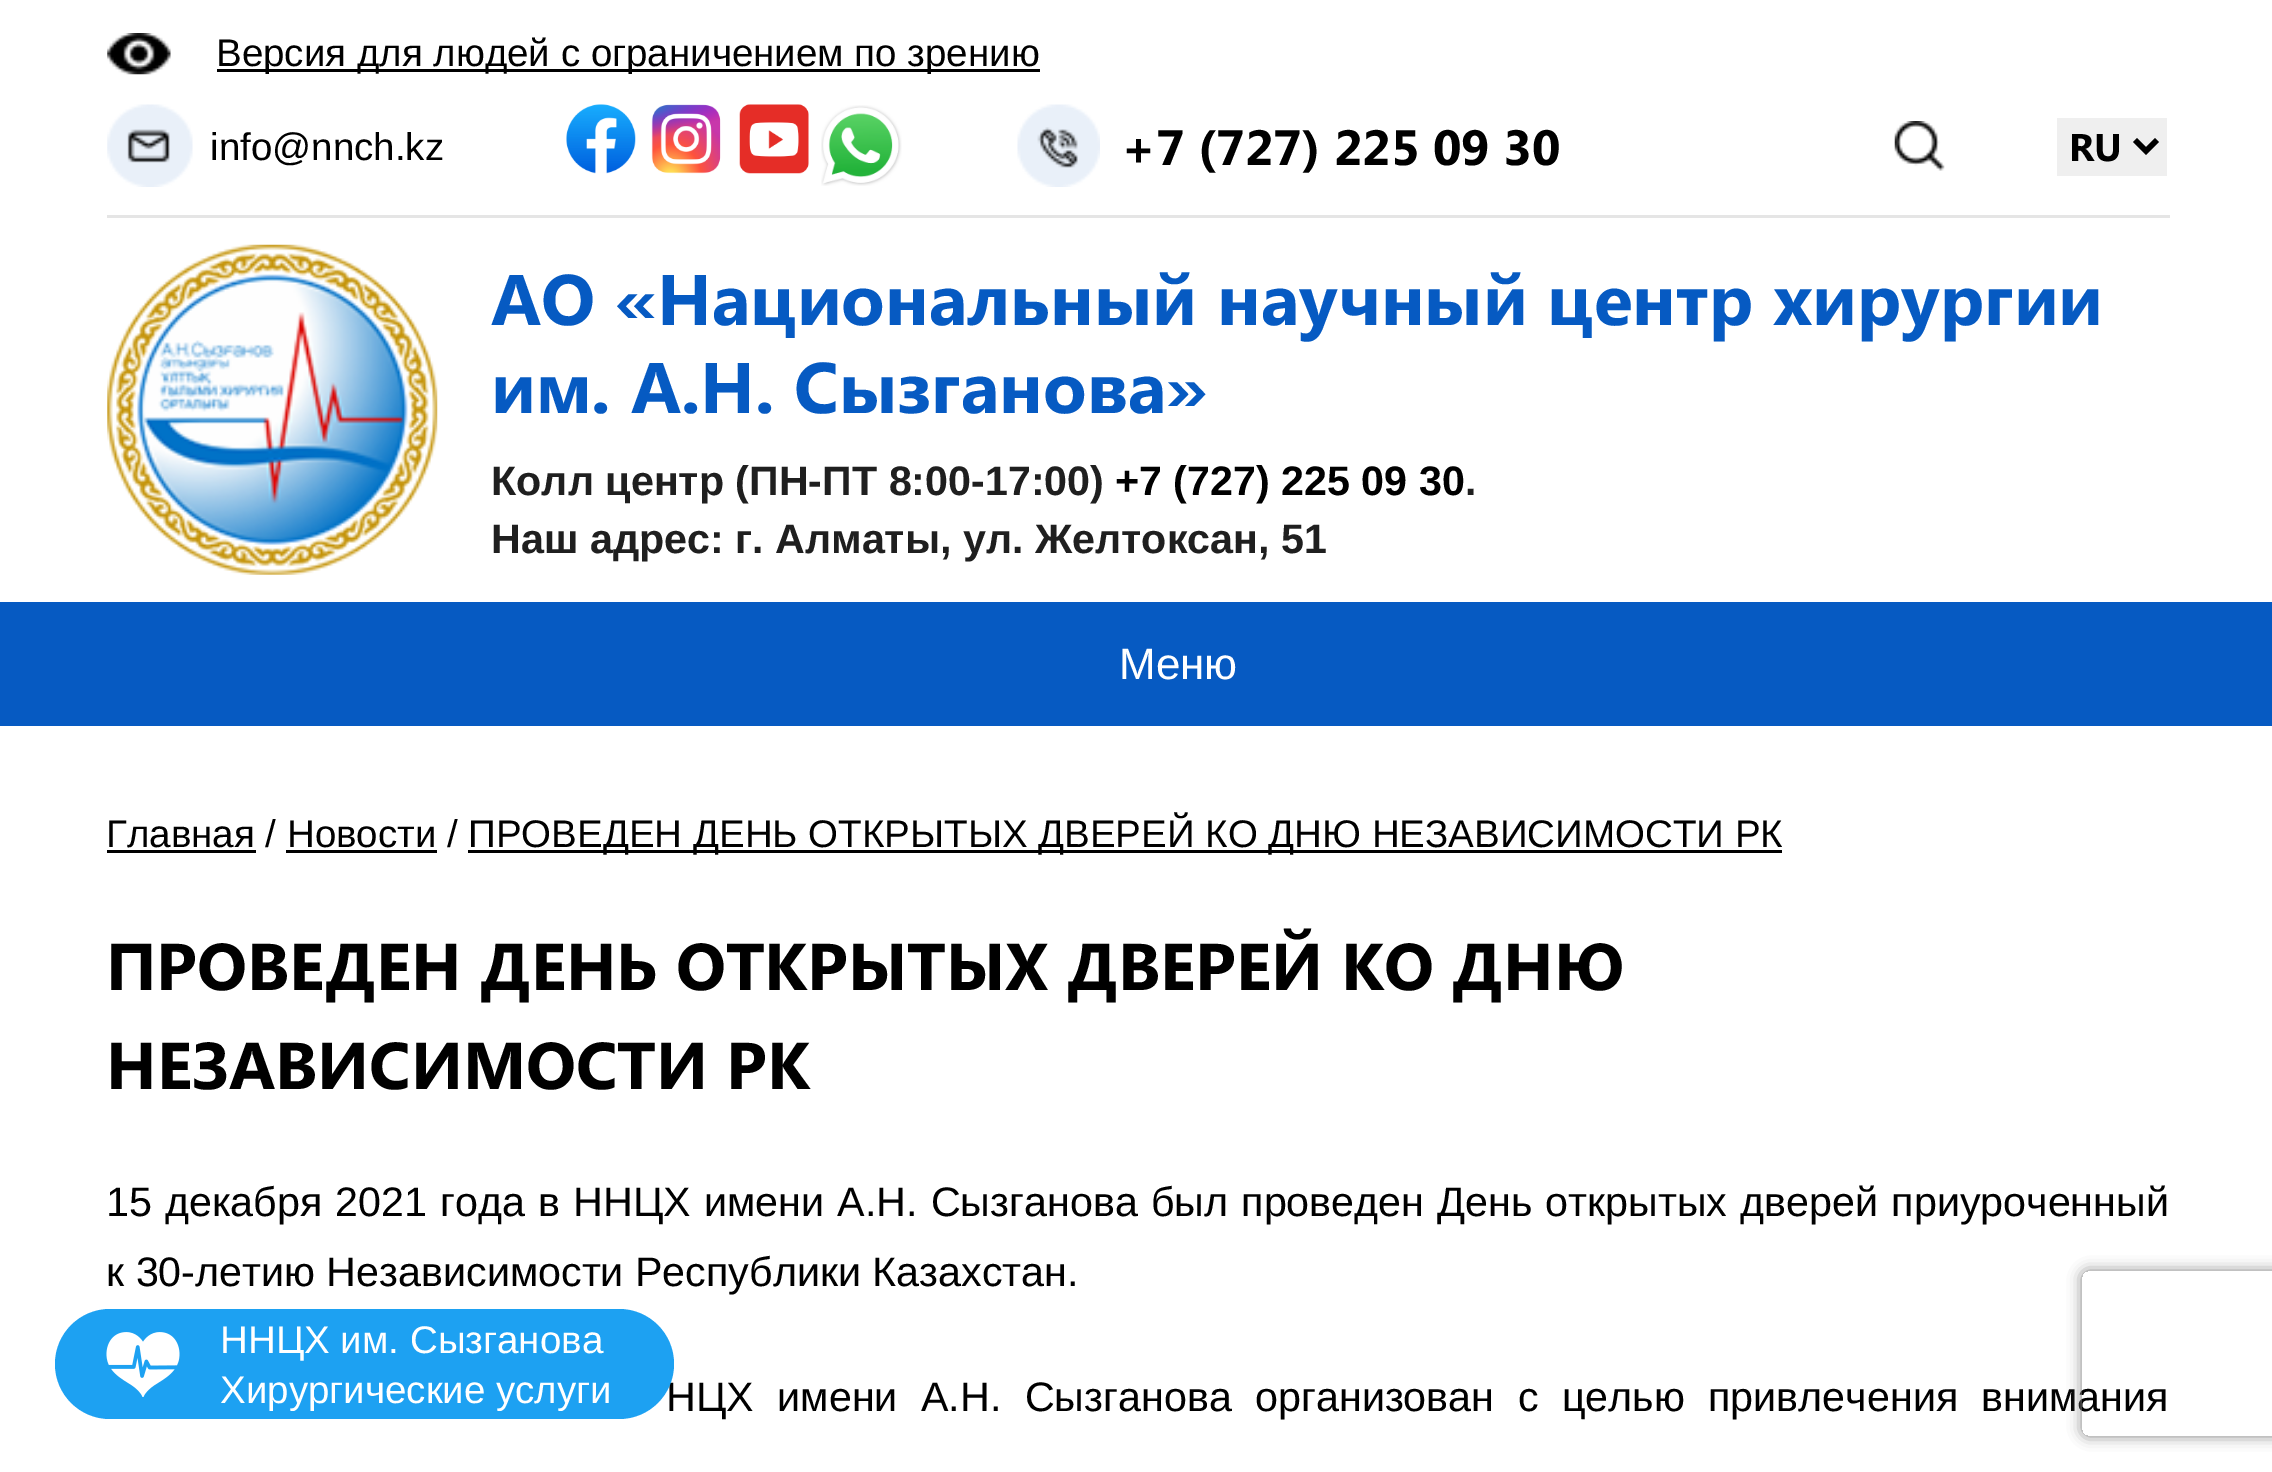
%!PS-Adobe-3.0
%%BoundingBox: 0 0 2272 1472
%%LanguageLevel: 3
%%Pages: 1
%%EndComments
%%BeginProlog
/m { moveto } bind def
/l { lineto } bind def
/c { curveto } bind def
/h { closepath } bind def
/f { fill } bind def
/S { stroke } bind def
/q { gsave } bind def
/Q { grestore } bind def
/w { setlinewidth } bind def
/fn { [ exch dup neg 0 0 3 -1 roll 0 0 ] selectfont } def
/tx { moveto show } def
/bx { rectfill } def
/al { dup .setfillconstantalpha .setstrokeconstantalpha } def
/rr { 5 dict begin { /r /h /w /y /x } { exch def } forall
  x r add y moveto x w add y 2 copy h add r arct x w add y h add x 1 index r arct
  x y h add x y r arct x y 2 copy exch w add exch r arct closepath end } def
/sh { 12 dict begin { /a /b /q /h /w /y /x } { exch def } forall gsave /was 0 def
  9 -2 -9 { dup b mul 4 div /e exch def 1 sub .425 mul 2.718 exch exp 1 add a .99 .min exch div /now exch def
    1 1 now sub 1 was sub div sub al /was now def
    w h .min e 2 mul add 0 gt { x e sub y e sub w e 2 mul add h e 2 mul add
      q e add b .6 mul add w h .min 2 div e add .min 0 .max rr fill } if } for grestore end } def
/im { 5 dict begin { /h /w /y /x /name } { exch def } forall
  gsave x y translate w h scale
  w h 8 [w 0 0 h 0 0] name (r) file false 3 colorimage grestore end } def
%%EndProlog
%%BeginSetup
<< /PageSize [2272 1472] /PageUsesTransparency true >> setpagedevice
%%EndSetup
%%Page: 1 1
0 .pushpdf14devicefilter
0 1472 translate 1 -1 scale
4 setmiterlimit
1 setgray
0 0 2272 1472 bx
0.898 setgray
107 215 2063 3 bx
(image0.raw) 107 33 64 42 im
0 setgray
217 69 823 3 bx
/LiberationSans-Regular 38.5 fn
(Версия для людей с ограничением по зрению) 216 66 tx
(image1.raw) 107 104 86 83 im
(info@nnch.kz) 210 160 tx
(image2.raw) 566 104 70 70 im
(image3.raw) 651 104 70 70 im
(image4.raw) 739 104 70 70 im
(image5.raw) 821 105 81 81 im
(image6.raw) 1017 104 83 83 im
/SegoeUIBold-Bold 49.5 fn
(+7 \(727\) 225 09 30) 1121 165 tx
(image7.raw) 1894 121 51 50 im
0.937 setgray
2057 118 110 58 bx
0 setgray
5.5 w
2135 140 m 2146 151 l 2157 140 l S
/SegoeUIBold-Bold 38.5 fn
(RU) 2069 161 tx
(image8.raw) 107 244 331 331 im
/SegoeUIBold-Bold 71.5 fn
0.024 0.353 0.761 setrgbcolor
(АО «Национальный научный центр хирургии) 491 325 tx
(им. А.Н. Сызганова») 491 413 tx
/LiberationSans-Bold 41.25 fn
0.122 setgray
(Колл центр \(ПН-ПТ 8:00-17:00\)) 491 495 tx
0 setgray
(+7 \(727\) 225 09 30) 1115 495 tx
0.122 setgray
(.) 1465 495 tx
(Наш адрес: г. Алматы, ул. Желтоксан, 51) 491 553 tx
0.024 0.353 0.761 setrgbcolor
0 602 2272 124 bx
/LiberationSans-Regular 44 fn
1 setgray
(Меню) 1119 679 tx
/LiberationSans-Regular 38.5 fn
0 setgray
(Главная / Новости /) 106 847 tx
107 850 149 3 bx
468 850 1314 3 bx
(ПРОВЕДЕН ДЕНЬ ОТКРЫТЫХ ДВЕРЕЙ КО ДНЮ НЕЗАВИСИМОСТИ РК) 468 847 tx
286 850 151 3 bx
/SegoeUIBold-Bold 66 fn
(ПРОВЕДЕН ДЕНЬ ОТКРЫТЫХ ДВЕРЕЙ КО ДНЮ) 106 990 tx
(НЕЗАВИСИМОСТИ РК) 106 1089 tx
/LiberationSans-Regular 41.25 fn
106 1216 m 1.7 0 32 (15 декабря 2021 года в ННЦХ имени А.Н. Сызганова был проведен День открытых дверей приуроченный) widthshow
(к 30-летию Независимости Республики Казахстан.) 106 1286 tx
666 1411 m 12 0 32 (НЦХ имени А.Н. Сызганова организован с целью привлечения внимания) widthshow
0.114 0.631 0.949 setrgbcolor
55 1309 619 110 55 rr f
(image9.raw) 106 1332 74 65 im
/LiberationSans-Regular 38.5 fn
1 setgray
(ННЦХ им. Сызганова) 220 1353 tx
(Хирургические услуги) 220 1403 tx
q
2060 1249 m 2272 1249 l 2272 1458 l 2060 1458 l h 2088 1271 m 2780 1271 l 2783.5 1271 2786 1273.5 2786 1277 c 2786 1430 l 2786 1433.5 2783.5 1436 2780 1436 c 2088 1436 l 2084.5 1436 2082 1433.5 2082 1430 c 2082 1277 l 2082 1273.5 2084.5 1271 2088 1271 c h eoclip newpath
0.502 setgray
2082 1271 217 165 6 7 1 sh
Q
.poppdf14devicefilter showpage
%%EOF
